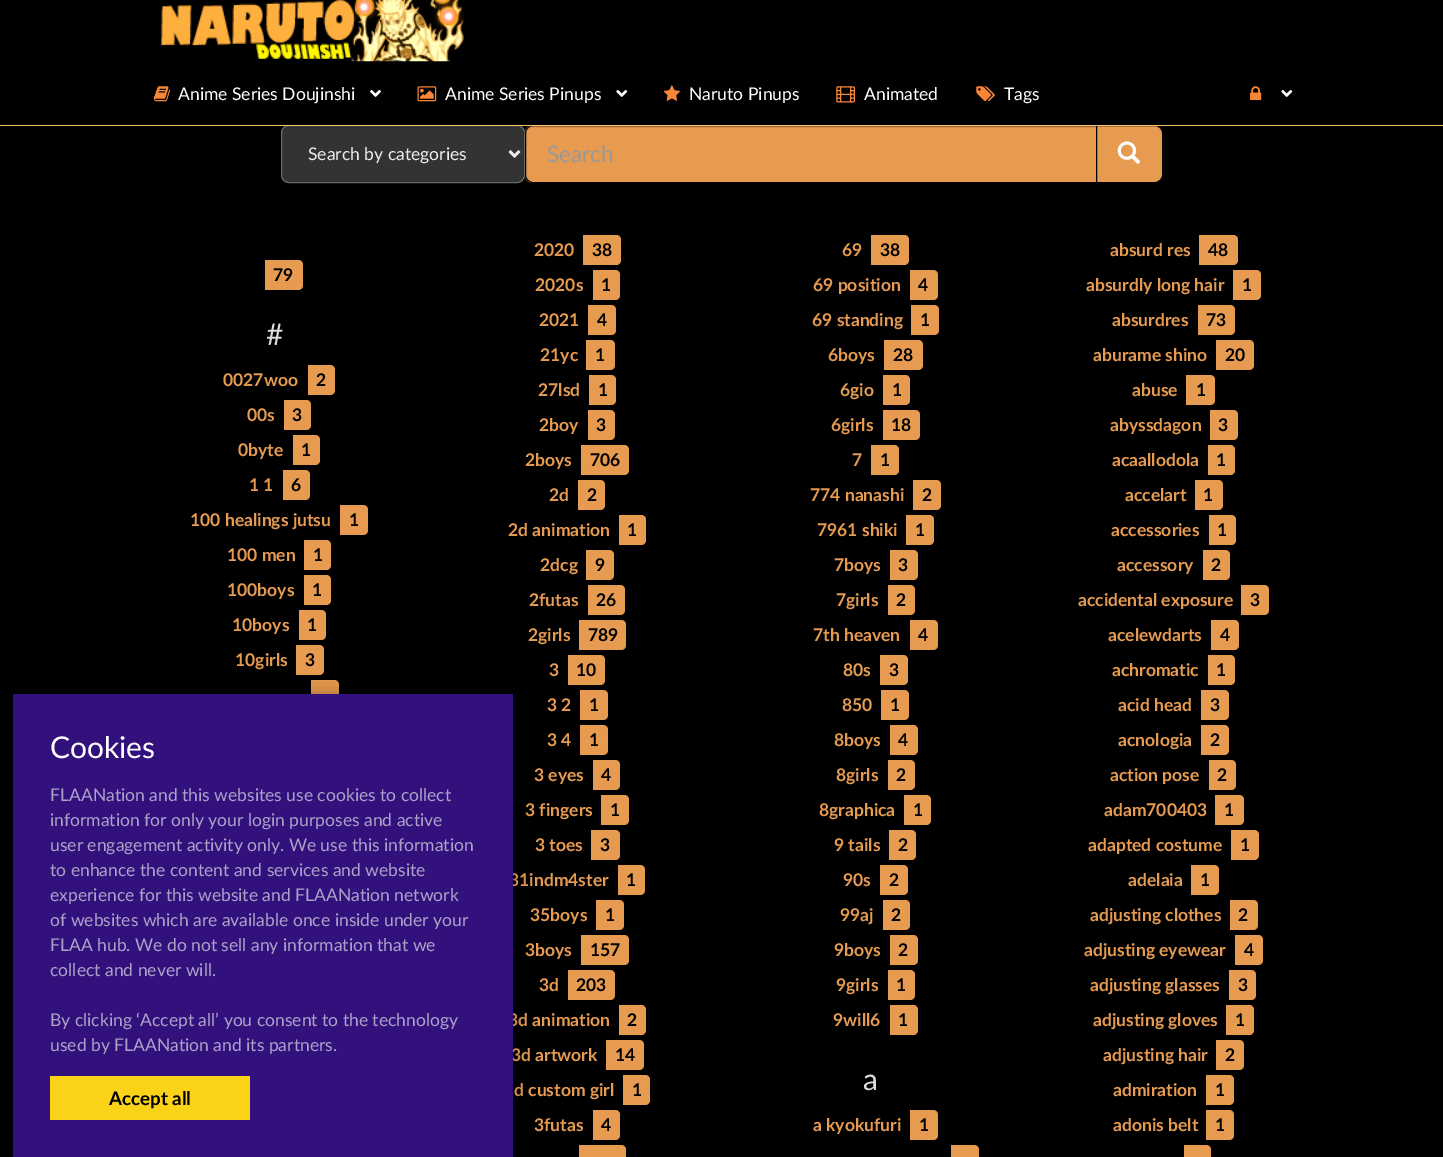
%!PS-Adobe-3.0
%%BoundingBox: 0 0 1443 1157
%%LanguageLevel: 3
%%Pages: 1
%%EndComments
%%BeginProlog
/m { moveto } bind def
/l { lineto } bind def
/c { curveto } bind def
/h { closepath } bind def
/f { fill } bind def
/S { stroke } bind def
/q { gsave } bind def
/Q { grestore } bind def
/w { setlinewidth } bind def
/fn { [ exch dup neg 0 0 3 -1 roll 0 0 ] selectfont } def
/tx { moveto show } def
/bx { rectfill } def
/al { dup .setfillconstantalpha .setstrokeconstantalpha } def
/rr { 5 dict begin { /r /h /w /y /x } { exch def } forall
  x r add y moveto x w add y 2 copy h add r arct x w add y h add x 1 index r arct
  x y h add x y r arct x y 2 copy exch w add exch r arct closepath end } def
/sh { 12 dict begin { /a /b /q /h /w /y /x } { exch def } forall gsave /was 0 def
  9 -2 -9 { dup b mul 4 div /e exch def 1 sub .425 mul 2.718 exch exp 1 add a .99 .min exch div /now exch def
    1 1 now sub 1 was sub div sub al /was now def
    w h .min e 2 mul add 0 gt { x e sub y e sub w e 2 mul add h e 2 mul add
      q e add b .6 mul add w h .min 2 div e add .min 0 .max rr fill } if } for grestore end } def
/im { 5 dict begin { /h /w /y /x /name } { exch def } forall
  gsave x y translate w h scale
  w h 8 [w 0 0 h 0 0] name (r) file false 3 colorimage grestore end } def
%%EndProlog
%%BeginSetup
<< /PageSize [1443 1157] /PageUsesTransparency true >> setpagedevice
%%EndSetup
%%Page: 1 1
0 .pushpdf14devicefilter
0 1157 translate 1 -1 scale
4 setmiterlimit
0 setgray
0 0 1443 1157 bx
0.2 setgray
281 125 244 58 8 rr f
0.184 setgray
289 128 m 518 128 l 521 128 524 130 524 134 c 524 132 l 524 129 521 126 518 126 c 289 126 l 286 126 284 128 283 130 c 285 129 287 128 289 128 c h f
0.4 setgray
281.5 125.5 243 57 7.5 rr S
0.902 0.608 0.314 setrgbcolor
533 125 m 1098 125 l 1098 183 l 533 183 l 528.5 183 525 179.5 525 175 c 525 133 l 525 128.5 528.5 125 533 125 c h f
0.835 0.561 0.29 setrgbcolor
532 128 m 1096 128 l 1096 126 l 532 126 l 527 126 526 130 526 134 c 526 130 529 128 532 128 c h f
0 setgray
533 125.5 m 1097.5 125.5 l 1097.5 182.5 l 533 182.5 l 529 182.5 525.5 179 525.5 175 c 525.5 133 l 525.5 129 529 125.5 533 125.5 c h S
0.902 0.608 0.314 setrgbcolor
1096.5 125.5 m 1155 125.5 l 1159 125.5 1162.5 129 1162.5 133 c 1162.5 175 l 1162.5 179 1159 182.5 1155 182.5 c 1096.5 182.5 l h q f Q
0 setgray
S
0.957 0.741 0.416 setrgbcolor
0 125 1443 1 bx
(image0.raw) 161 0 303 62 im
(image1.raw) 153 86 17 16 im
/Lato-Regular 17.5 fn
1 setgray
(Anime Series Doujinshi) 178 100 tx
(image2.raw) 370 90 11 7 im
(image3.raw) 417 86 20 16 im
(Anime Series Pinups) 445 100 tx
(image4.raw) 616 90 12 7 im
(image5.raw) 663 85 17 16 im
(Naruto Pinups) 689 100 tx
(image6.raw) 836 86 19 17 im
(Animated) 864 100 tx
(image7.raw) 976 86 19 15 im
(Tags) 1004 100 tx
(image8.raw) 1250 86 12 14 im
(image4.raw) 1281 90 12 7 im
0.933 setgray
2.5 w
509.5 151 m 514.5 156 l 519.5 151 l S
(Search by categories) 308 160 tx
/Lato-Regular 22.5 fn
0.6 setgray
(Search) 547 162 tx
(image9.raw) 1117 141 24 23 im
/Lato-Bold 17.5 fn
0.902 0.608 0.314 setrgbcolor
(2020) 534 256 tx
583 235 m 616 235 l 619 235 621 237 621 240 c 621 260 l 621 263 619 265 616 265 c 583 265 l h f
0 setgray
(38) 592 256 tx
0.902 0.608 0.314 setrgbcolor
(69) 842 256 tx
871 235 m 904 235 l 907 235 909 237 909 240 c 909 260 l 909 263 907 265 904 265 c 871 265 l h f
0 setgray
(38) 880 256 tx
0.902 0.608 0.314 setrgbcolor
(2020s) 535 291 tx
593 270 m 615 270 l 618 270 620 272 620 275 c 620 295 l 620 298 618 300 615 300 c 593 300 l h f
0 setgray
(1) 601 291 tx
0.902 0.608 0.314 setrgbcolor
(69 position) 813 291 tx
910 270 m 933 270 l 936 270 938 272 938 275 c 938 295 l 938 298 936 300 933 300 c 910 300 l h f
0 setgray
(4) 918 291 tx
/Lato-Regular 30 fn
0.867 setgray
(#) 266 345 tx
/Lato-Bold 17.5 fn
0.902 0.608 0.314 setrgbcolor
(2021) 539 326 tx
588 305 m 611 305 l 614 305 616 307 616 310 c 616 330 l 616 333 614 335 611 335 c 588 335 l h f
0 setgray
(4) 597 326 tx
0.902 0.608 0.314 setrgbcolor
(69 standing) 812 326 tx
911 305 m 934 305 l 937 305 939 307 939 310 c 939 330 l 939 333 937 335 934 335 c 911 335 l h f
0 setgray
(1) 920 326 tx
0.902 0.608 0.314 setrgbcolor
(21yc) 540 361 tx
586 340 m 610 340 l 613 340 615 342 615 345 c 615 365 l 615 368 613 370 610 370 c 586 370 l h f
0 setgray
(1) 595 361 tx
0.902 0.608 0.314 setrgbcolor
(6boys) 828 361 tx
884 340 m 918 340 l 921 340 923 342 923 345 c 923 365 l 923 368 921 370 918 370 c 884 370 l h f
0 setgray
(28) 893 361 tx
0.902 0.608 0.314 setrgbcolor
(0027woo) 223 386 tx
308 365 m 330 365 l 333 365 335 367 335 370 c 335 390 l 335 393 333 395 330 395 c 308 395 l h f
0 setgray
(2) 316 386 tx
0.902 0.608 0.314 setrgbcolor
(27lsd) 538 396 tx
589 375 m 611 375 l 614 375 616 377 616 380 c 616 400 l 616 403 614 405 611 405 c 589 405 l h f
0 setgray
(1) 598 396 tx
0.902 0.608 0.314 setrgbcolor
(6gio) 840 396 tx
883 375 m 905 375 l 908 375 910 377 910 380 c 910 400 l 910 403 908 405 905 405 c 883 405 l h f
0 setgray
(1) 892 396 tx
0.902 0.608 0.314 setrgbcolor
(00s) 247 421 tx
284 400 m 306 400 l 309 400 311 402 311 405 c 311 425 l 311 428 309 430 306 430 c 284 430 l h f
0 setgray
(3) 292 421 tx
0.902 0.608 0.314 setrgbcolor
(2boy) 539 431 tx
588 410 m 610 410 l 613 410 615 412 615 415 c 615 435 l 615 438 613 440 610 440 c 588 440 l h f
0 setgray
(3) 596 431 tx
0.902 0.608 0.314 setrgbcolor
(6girls) 831 431 tx
883 410 m 915 410 l 918 410 920 412 920 415 c 920 435 l 920 438 918 440 915 440 c 883 440 l h f
0 setgray
(18) 891 431 tx
0.902 0.608 0.314 setrgbcolor
(0byte) 238 456 tx
293 435 m 315 435 l 318 435 320 437 320 440 c 320 460 l 320 463 318 465 315 465 c 293 465 l h f
0 setgray
(1) 301 456 tx
0.902 0.608 0.314 setrgbcolor
(2boys) 525 466 tx
581 445 m 624 445 l 627 445 629 447 629 450 c 629 470 l 629 473 627 475 624 475 c 581 475 l h f
0 setgray
(706) 590 466 tx
0.902 0.608 0.314 setrgbcolor
(7) 852 466 tx
871 445 m 894 445 l 897 445 899 447 899 450 c 899 470 l 899 473 897 475 894 475 c 871 475 l h f
0 setgray
(1) 880 466 tx
0.902 0.608 0.314 setrgbcolor
(1 1) 249 491 tx
283 470 m 305 470 l 308 470 310 472 310 475 c 310 495 l 310 498 308 500 305 500 c 283 500 l h f
0 setgray
(6) 291 491 tx
0.902 0.608 0.314 setrgbcolor
(2d) 549 501 tx
578 480 m 600 480 l 603 480 605 482 605 485 c 605 505 l 605 508 603 510 600 510 c 578 510 l h f
0 setgray
(2) 587 501 tx
0.902 0.608 0.314 setrgbcolor
(774 nanashi) 810 501 tx
913 480 m 936 480 l 939 480 941 482 941 485 c 941 505 l 941 508 939 510 936 510 c 913 510 l h f
0 setgray
(2) 922 501 tx
0.902 0.608 0.314 setrgbcolor
(100 healings jutsu) 190 526 tx
340 505 m 363 505 l 366 505 368 507 368 510 c 368 530 l 368 533 366 535 363 535 c 340 535 l h f
0 setgray
(1) 349 526 tx
0.902 0.608 0.314 setrgbcolor
(2d animation) 508 536 tx
619 515 m 641 515 l 644 515 646 517 646 520 c 646 540 l 646 543 644 545 641 545 c 619 545 l h f
0 setgray
(1) 627 536 tx
0.902 0.608 0.314 setrgbcolor
(7961 shiki) 817 536 tx
906 515 m 929 515 l 932 515 934 517 934 520 c 934 540 l 934 543 932 545 929 545 c 906 545 l h f
0 setgray
(1) 915 536 tx
0.902 0.608 0.314 setrgbcolor
(100 men) 227 561 tx
304 540 m 326 540 l 329 540 331 542 331 545 c 331 565 l 331 568 329 570 326 570 c 304 570 l h f
0 setgray
(1) 313 561 tx
0.902 0.608 0.314 setrgbcolor
(2dcg) 540 571 tx
586 550 m 609 550 l 612 550 614 552 614 555 c 614 575 l 614 578 612 580 609 580 c 586 580 l h f
0 setgray
(9) 595 571 tx
0.902 0.608 0.314 setrgbcolor
(7boys) 834 571 tx
890 550 m 913 550 l 916 550 918 552 918 555 c 918 575 l 918 578 916 580 913 580 c 890 580 l h f
0 setgray
(3) 898 571 tx
0.902 0.608 0.314 setrgbcolor
(100boys) 227 596 tx
304 575 m 326 575 l 329 575 331 577 331 580 c 331 600 l 331 603 329 605 326 605 c 304 605 l h f
0 setgray
(1) 312 596 tx
0.902 0.608 0.314 setrgbcolor
(2futas) 529 606 tx
588 585 m 620 585 l 623 585 625 587 625 590 c 625 610 l 625 613 623 615 620 615 c 588 615 l h f
0 setgray
(26) 596 606 tx
0.902 0.608 0.314 setrgbcolor
(7girls) 836 606 tx
888 585 m 910 585 l 913 585 915 587 915 590 c 915 610 l 915 613 913 615 910 615 c 888 615 l h f
0 setgray
(2) 896 606 tx
0.902 0.608 0.314 setrgbcolor
(10boys) 232 631 tx
299 610 m 321 610 l 324 610 326 612 326 615 c 326 635 l 326 638 324 640 321 640 c 299 640 l h f
0 setgray
(1) 307 631 tx
0.902 0.608 0.314 setrgbcolor
(2girls) 528 641 tx
579 620 m 621 620 l 624 620 626 622 626 625 c 626 645 l 626 648 624 650 621 650 c 579 650 l h f
0 setgray
(789) 588 641 tx
0.902 0.608 0.314 setrgbcolor
(7th heaven) 813 641 tx
910 620 m 933 620 l 936 620 938 622 938 625 c 938 645 l 938 648 936 650 933 650 c 910 650 l h f
0 setgray
(4) 918 641 tx
0.902 0.608 0.314 setrgbcolor
(10girls) 235 666 tx
296 645 m 319 645 l 322 645 324 647 324 650 c 324 670 l 324 673 322 675 319 675 c 296 675 l h f
0 setgray
(3) 305 666 tx
0.902 0.608 0.314 setrgbcolor
(3) 549 676 tx
568 655 m 600 655 l 603 655 605 657 605 660 c 605 680 l 605 683 603 685 600 685 c 568 685 l h f
0 setgray
(10) 576 676 tx
0.902 0.608 0.314 setrgbcolor
(80s) 843 676 tx
880 655 m 903 655 l 906 655 908 657 908 660 c 908 680 l 908 683 906 685 903 685 c 880 685 l h f
0 setgray
(3) 889 676 tx
0.902 0.608 0.314 setrgbcolor
311 680 m 334 680 l 337 680 339 682 339 685 c 339 705 l 339 708 337 710 334 710 c 311 710 l h f
(3 2) 547 711 tx
580 690 m 603 690 l 606 690 608 692 608 695 c 608 715 l 608 718 606 720 603 720 c 580 720 l h f
0 setgray
(1) 589 711 tx
0.902 0.608 0.314 setrgbcolor
(850) 842 711 tx
881 690 m 904 690 l 907 690 909 692 909 695 c 909 715 l 909 718 907 720 904 720 c 881 720 l h f
0 setgray
(1) 890 711 tx
0.902 0.608 0.314 setrgbcolor
(3 4) 547 746 tx
580 725 m 603 725 l 606 725 608 727 608 730 c 608 750 l 608 753 606 755 603 755 c 580 755 l h f
0 setgray
(1) 589 746 tx
0.902 0.608 0.314 setrgbcolor
(8boys) 834 746 tx
890 725 m 913 725 l 916 725 918 727 918 730 c 918 750 l 918 753 916 755 913 755 c 890 755 l h f
0 setgray
(4) 898 746 tx
0.902 0.608 0.314 setrgbcolor
(3 eyes) 534 781 tx
593 760 m 615 760 l 618 760 620 762 620 765 c 620 785 l 620 788 618 790 615 790 c 593 790 l h f
0 setgray
(4) 601 781 tx
0.902 0.608 0.314 setrgbcolor
(8girls) 836 781 tx
888 760 m 910 760 l 913 760 915 762 915 765 c 915 785 l 915 788 913 790 910 790 c 888 790 l h f
0 setgray
(2) 896 781 tx
0.902 0.608 0.314 setrgbcolor
(3 fingers) 525 816 tx
601 795 m 624 795 l 627 795 629 797 629 800 c 629 820 l 629 823 627 825 624 825 c 601 825 l h f
0 setgray
(1) 610 816 tx
0.902 0.608 0.314 setrgbcolor
(8graphica) 819 816 tx
904 795 m 926 795 l 929 795 931 797 931 800 c 931 820 l 931 823 929 825 926 825 c 904 825 l h f
0 setgray
(1) 913 816 tx
0.902 0.608 0.314 setrgbcolor
(3 toes) 535 851 tx
591 830 m 615 830 l 618 830 620 832 620 835 c 620 855 l 620 858 618 860 615 860 c 591 860 l h f
0 setgray
(3) 600 851 tx
0.902 0.608 0.314 setrgbcolor
(9 tails) 834 851 tx
889 830 m 911 830 l 914 830 916 832 916 835 c 916 855 l 916 858 914 860 911 860 c 889 860 l h f
0 setgray
(2) 898 851 tx
0.902 0.608 0.314 setrgbcolor
(31indm4ster) 509 886 tx
618 865 m 640 865 l 643 865 645 867 645 870 c 645 890 l 645 893 643 895 640 895 c 618 895 l h f
0 setgray
(1) 626 886 tx
0.902 0.608 0.314 setrgbcolor
(90s) 843 886 tx
880 865 m 903 865 l 906 865 908 867 908 870 c 908 890 l 908 893 906 895 903 895 c 880 895 l h f
0 setgray
(2) 889 886 tx
0.902 0.608 0.314 setrgbcolor
(35boys) 530 921 tx
596 900 m 619 900 l 622 900 624 902 624 905 c 624 925 l 624 928 622 930 619 930 c 596 930 l h f
0 setgray
(1) 605 921 tx
0.902 0.608 0.314 setrgbcolor
(99aj) 840 921 tx
883 900 m 905 900 l 908 900 910 902 910 905 c 910 925 l 910 928 908 930 905 930 c 883 930 l h f
0 setgray
(2) 891 921 tx
0.902 0.608 0.314 setrgbcolor
(3boys) 525 956 tx
581 935 m 624 935 l 627 935 629 937 629 940 c 629 960 l 629 963 627 965 624 965 c 581 965 l h f
0 setgray
(157) 590 956 tx
0.902 0.608 0.314 setrgbcolor
(9boys) 834 956 tx
890 935 m 913 935 l 916 935 918 937 918 940 c 918 960 l 918 963 916 965 913 965 c 890 965 l h f
0 setgray
(2) 898 956 tx
0.902 0.608 0.314 setrgbcolor
(3d) 539 991 tx
568 970 m 610 970 l 613 970 615 972 615 975 c 615 995 l 615 998 613 1000 610 1000 c 568 1000 l h f
0 setgray
(203) 576 991 tx
0.902 0.608 0.314 setrgbcolor
(9girls) 836 991 tx
888 970 m 910 970 l 913 970 915 972 915 975 c 915 995 l 915 998 913 1000 910 1000 c 888 1000 l h f
0 setgray
(1) 896 991 tx
0.902 0.608 0.314 setrgbcolor
(3d animation) 508 1026 tx
619 1005 m 641 1005 l 644 1005 646 1007 646 1010 c 646 1030 l 646 1033 644 1035 641 1035 c 619 1035 l h f
0 setgray
(2) 627 1026 tx
0.902 0.608 0.314 setrgbcolor
(9will6) 833 1026 tx
890 1005 m 913 1005 l 916 1005 918 1007 918 1010 c 918 1030 l 918 1033 916 1035 913 1035 c 890 1035 l h f
0 setgray
(1) 898 1026 tx
0.902 0.608 0.314 setrgbcolor
(3d artwork) 511 1061 tx
606 1040 m 639 1040 l 642 1040 644 1042 644 1045 c 644 1065 l 644 1068 642 1070 639 1070 c 606 1070 l h f
0 setgray
(14) 615 1061 tx
0.902 0.608 0.314 setrgbcolor
(d custom girl) 514 1096 tx
623 1075 m 645 1075 l 648 1075 650 1077 650 1080 c 650 1100 l 650 1103 648 1105 645 1105 c 623 1105 l h f
0 setgray
(1) 632 1096 tx
0.902 0.608 0.314 setrgbcolor
(3futas) 534 1131 tx
593 1110 m 615 1110 l 618 1110 620 1112 620 1115 c 620 1135 l 620 1138 618 1140 615 1140 c 593 1140 l h f
0 setgray
(4) 601 1131 tx
0.902 0.608 0.314 setrgbcolor
579 1145 m 621 1145 l 624 1145 626 1147 626 1150 c 626 1157 l 626 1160 624 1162 621 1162 c 579 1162 l h f
(absurd res) 1110 256 tx
1199 235 m 1233 235 l 1236 235 1238 237 1238 240 c 1238 260 l 1238 263 1236 265 1233 265 c 1199 265 l h f
0 setgray
(48) 1208 256 tx
0.902 0.608 0.314 setrgbcolor
(absurdly long hair) 1086 291 tx
1233 270 m 1256 270 l 1259 270 1261 272 1261 275 c 1261 295 l 1261 298 1259 300 1256 300 c 1233 300 l h f
0 setgray
(1) 1242 291 tx
0.902 0.608 0.314 setrgbcolor
(absurdres) 1112 326 tx
1198 305 m 1230 305 l 1233 305 1235 307 1235 310 c 1235 330 l 1235 333 1233 335 1230 335 c 1198 335 l h f
0 setgray
(73) 1206 326 tx
0.902 0.608 0.314 setrgbcolor
(aburame shino) 1093 361 tx
1216 340 m 1249 340 l 1252 340 1254 342 1254 345 c 1254 365 l 1254 368 1252 370 1249 370 c 1216 370 l h f
0 setgray
(20) 1225 361 tx
0.902 0.608 0.314 setrgbcolor
(abuse) 1132 396 tx
1186 375 m 1210 375 l 1213 375 1215 377 1215 380 c 1215 400 l 1215 403 1213 405 1210 405 c 1186 405 l h f
0 setgray
(1) 1196 396 tx
0.902 0.608 0.314 setrgbcolor
(abyssdagon) 1110 431 tx
1210 410 m 1233 410 l 1236 410 1238 412 1238 415 c 1238 435 l 1238 438 1236 440 1233 440 c 1210 440 l h f
0 setgray
(3) 1218 431 tx
0.902 0.608 0.314 setrgbcolor
(acaallodola) 1112 466 tx
1208 445 m 1230 445 l 1233 445 1235 447 1235 450 c 1235 470 l 1235 473 1233 475 1230 475 c 1208 475 l h f
0 setgray
(1) 1216 466 tx
0.902 0.608 0.314 setrgbcolor
(accelart) 1125 501 tx
1195 480 m 1218 480 l 1221 480 1223 482 1223 485 c 1223 505 l 1223 508 1221 510 1218 510 c 1195 510 l h f
0 setgray
(1) 1203 501 tx
0.902 0.608 0.314 setrgbcolor
(accessories) 1111 536 tx
1209 515 m 1231 515 l 1234 515 1236 517 1236 520 c 1236 540 l 1236 543 1234 545 1231 545 c 1209 545 l h f
0 setgray
(1) 1217 536 tx
0.902 0.608 0.314 setrgbcolor
(accessory) 1117 571 tx
1203 550 m 1225 550 l 1228 550 1230 552 1230 555 c 1230 575 l 1230 578 1228 580 1225 580 c 1203 580 l h f
0 setgray
(2) 1211 571 tx
0.902 0.608 0.314 setrgbcolor
(accidental exposure) 1078 606 tx
1241 585 m 1264 585 l 1267 585 1269 587 1269 590 c 1269 610 l 1269 613 1267 615 1264 615 c 1241 615 l h f
0 setgray
(3) 1250 606 tx
0.902 0.608 0.314 setrgbcolor
(acelewdarts) 1108 641 tx
1211 620 m 1234 620 l 1237 620 1239 622 1239 625 c 1239 645 l 1239 648 1237 650 1234 650 c 1211 650 l h f
0 setgray
(4) 1220 641 tx
0.902 0.608 0.314 setrgbcolor
(achromatic) 1112 676 tx
1208 655 m 1230 655 l 1233 655 1235 657 1235 660 c 1235 680 l 1235 683 1233 685 1230 685 c 1208 685 l h f
0 setgray
(1) 1216 676 tx
0.902 0.608 0.314 setrgbcolor
(acid head) 1118 711 tx
1201 690 m 1224 690 l 1227 690 1229 692 1229 695 c 1229 715 l 1229 718 1227 720 1224 720 c 1201 720 l h f
0 setgray
(3) 1210 711 tx
0.902 0.608 0.314 setrgbcolor
(acnologia) 1118 746 tx
1201 725 m 1224 725 l 1227 725 1229 727 1229 730 c 1229 750 l 1229 753 1227 755 1224 755 c 1201 755 l h f
0 setgray
(2) 1210 746 tx
0.902 0.608 0.314 setrgbcolor
(action pose) 1110 781 tx
1209 760 m 1231 760 l 1234 760 1236 762 1236 765 c 1236 785 l 1236 788 1234 790 1231 790 c 1209 790 l h f
0 setgray
(2) 1217 781 tx
0.902 0.608 0.314 setrgbcolor
(adam700403) 1104 816 tx
1215 795 m 1239 795 l 1242 795 1244 797 1244 800 c 1244 820 l 1244 823 1242 825 1239 825 c 1215 825 l h f
0 setgray
(1) 1224 816 tx
0.902 0.608 0.314 setrgbcolor
(adapted costume) 1088 851 tx
1231 830 m 1254 830 l 1257 830 1259 832 1259 835 c 1259 855 l 1259 858 1257 860 1254 860 c 1231 860 l h f
0 setgray
(1) 1240 851 tx
0.902 0.608 0.314 setrgbcolor
(adelaia) 1128 886 tx
1191 865 m 1214 865 l 1217 865 1219 867 1219 870 c 1219 890 l 1219 893 1217 895 1214 895 c 1191 895 l h f
0 setgray
(1) 1200 886 tx
0.902 0.608 0.314 setrgbcolor
(adjusting clothes) 1090 921 tx
1230 900 m 1253 900 l 1256 900 1258 902 1258 905 c 1258 925 l 1258 928 1256 930 1253 930 c 1230 930 l h f
0 setgray
(2) 1238 921 tx
0.902 0.608 0.314 setrgbcolor
(adjusting eyewear) 1084 956 tx
1235 935 m 1258 935 l 1261 935 1263 937 1263 940 c 1263 960 l 1263 963 1261 965 1258 965 c 1235 965 l h f
0 setgray
(4) 1244 956 tx
0.902 0.608 0.314 setrgbcolor
(adjusting glasses) 1090 991 tx
1229 970 m 1251 970 l 1254 970 1256 972 1256 975 c 1256 995 l 1256 998 1254 1000 1251 1000 c 1229 1000 l h f
0 setgray
(3) 1238 991 tx
0.902 0.608 0.314 setrgbcolor
(adjusting gloves) 1093 1026 tx
1226 1005 m 1249 1005 l 1252 1005 1254 1007 1254 1010 c 1254 1030 l 1254 1033 1252 1035 1249 1035 c 1226 1035 l h f
0 setgray
(1) 1235 1026 tx
0.902 0.608 0.314 setrgbcolor
(adjusting hair) 1103 1061 tx
1216 1040 m 1239 1040 l 1242 1040 1244 1042 1244 1045 c 1244 1065 l 1244 1068 1242 1070 1239 1070 c 1216 1070 l h f
0 setgray
(2) 1225 1061 tx
/Lato-Regular 30 fn
0.867 setgray
(a) 863 1090 tx
/Lato-Bold 17.5 fn
0.902 0.608 0.314 setrgbcolor
(admiration) 1113 1096 tx
1206 1075 m 1229 1075 l 1232 1075 1234 1077 1234 1080 c 1234 1100 l 1234 1103 1232 1105 1229 1105 c 1206 1105 l h f
0 setgray
(1) 1215 1096 tx
0.902 0.608 0.314 setrgbcolor
(a kyokufuri) 813 1131 tx
910 1110 m 933 1110 l 936 1110 938 1112 938 1115 c 938 1135 l 938 1138 936 1140 933 1140 c 910 1140 l h f
0 setgray
(1) 919 1131 tx
0.902 0.608 0.314 setrgbcolor
(adonis belt) 1113 1131 tx
1206 1110 m 1229 1110 l 1232 1110 1234 1112 1234 1115 c 1234 1135 l 1234 1138 1232 1140 1229 1140 c 1206 1140 l h f
0 setgray
(1) 1215 1131 tx
0.902 0.608 0.314 setrgbcolor
951 1145 m 974 1145 l 977 1145 979 1147 979 1150 c 979 1157 l 979 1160 977 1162 974 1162 c 951 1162 l h f
1184 1145 m 1206 1145 l 1209 1145 1211 1147 1211 1150 c 1211 1157 l 1211 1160 1209 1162 1206 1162 c 1184 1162 l h f
265 260 m 298 260 l 301 260 303 262 303 265 c 303 285 l 303 288 301 290 298 290 c 265 290 l h f
0 setgray
(79) 273 281 tx
13 694 500 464 0 9.5 0.3 sh
0.196 0.067 0.49 setrgbcolor
13 694 500 463 bx
/Lato-Regular 30 fn
1 setgray
(Cookies) 50 758 tx
/Lato-Regular 17.5 fn
0.678 0.631 0.784 setrgbcolor
(FLAANation and this websites use cookies to collect) 50 801 tx
(information for only your login purposes and active) 50 826 tx
(user engagement activity only. We use this information) 50 851 tx
(to enhance the content and services and website) 50 876 tx
(experience for this website and FLAANation network) 50 901 tx
(of websites which are available once inside under your) 50 926 tx
(FLAA hub. We do not sell any information that we) 50 951 tx
(collect and never will.) 50 976 tx
(By clicking ‘Accept all’ you consent to the technology) 50 1026 tx
(used by FLAANation and its partners.) 50 1051 tx
0.98 0.827 0.094 setrgbcolor
50 1076 200 44 bx
/Lato-Bold 18.75 fn
0 setgray
(Accept all) 109 1105 tx
.poppdf14devicefilter showpage
%%EOF
